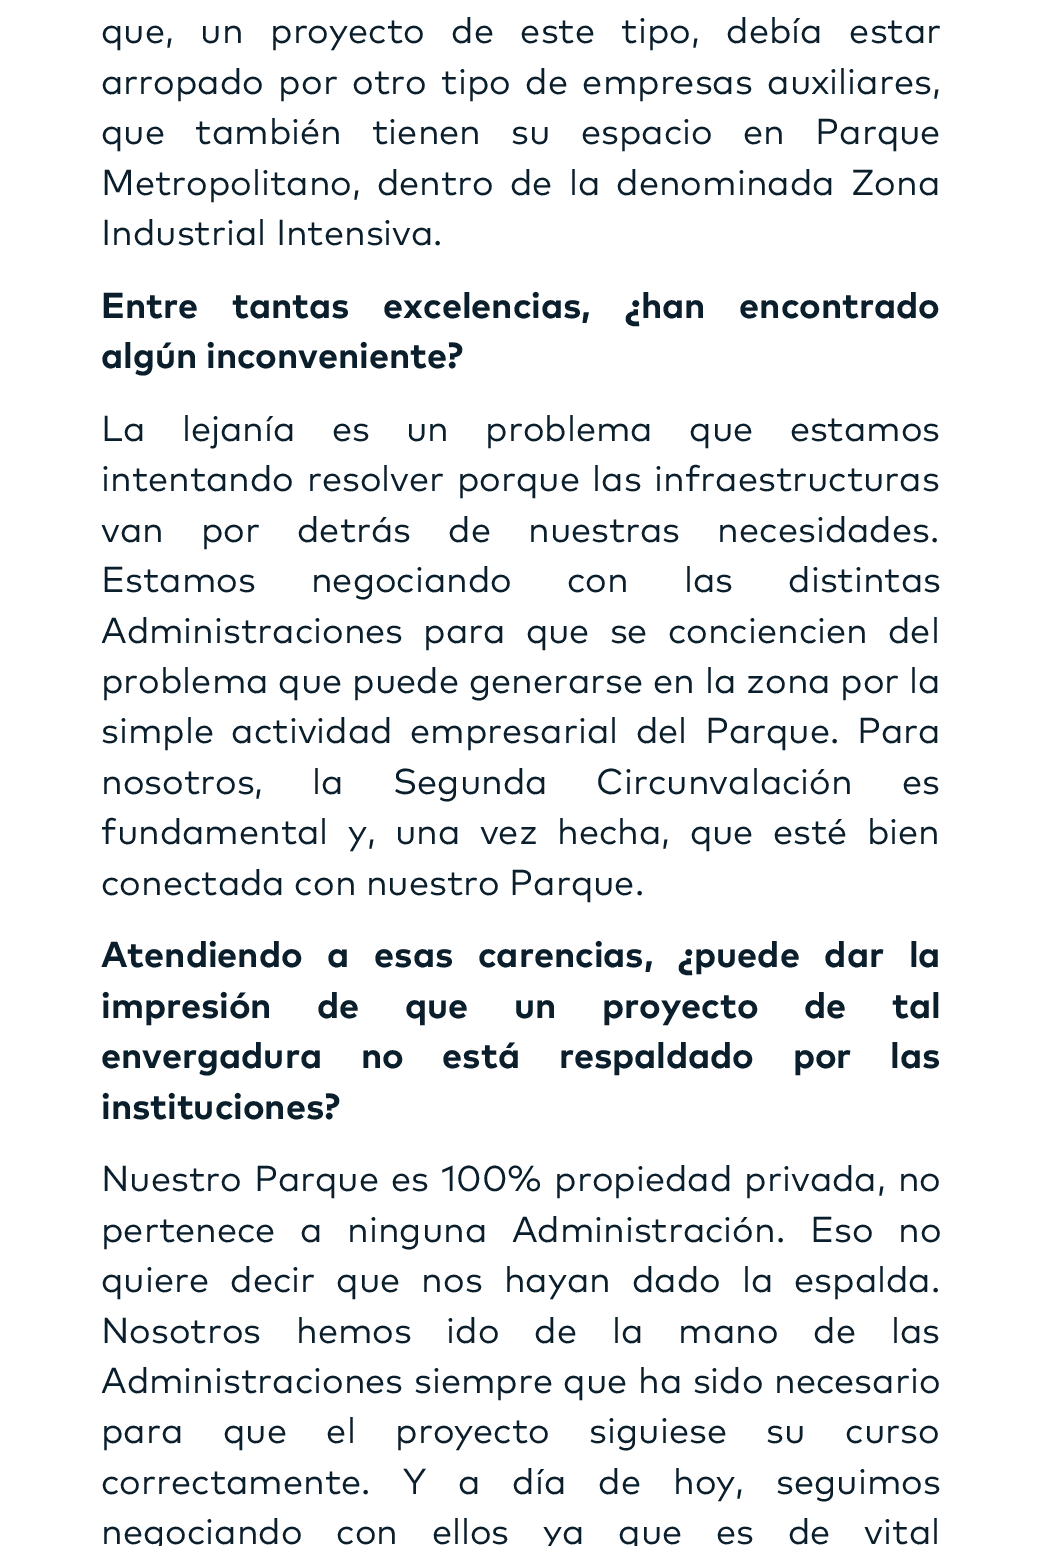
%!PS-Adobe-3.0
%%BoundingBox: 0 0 1040 1546
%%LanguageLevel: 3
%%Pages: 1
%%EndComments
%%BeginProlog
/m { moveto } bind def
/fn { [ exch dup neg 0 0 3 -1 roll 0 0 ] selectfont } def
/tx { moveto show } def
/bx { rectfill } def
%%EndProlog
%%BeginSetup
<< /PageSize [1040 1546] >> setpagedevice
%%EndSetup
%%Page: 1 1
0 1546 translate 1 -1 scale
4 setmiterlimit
1 setgray
0 0 1040 1546 bx
/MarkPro-Regular 36 fn
0.039 0.118 0.173 setrgbcolor
101 43 m 17 0 32 (que, un proyecto de este tipo, debía estar) widthshow
101 94 m 5 0 32 (arropado por otro tipo de empresas auxiliares,) widthshow
101 144 m 20.75 0 32 (que también tienen su espacio en Parque) widthshow
101 195 m 6.5 0 32 (Metropolitano, dentro de la denominada Zona) widthshow
(Industrial Intensiva.) 101 245 tx
/MarkPro-Bold 36 fn
101 318 m 25 0 32 (Entre tantas excelencias, ¿han encontrado) widthshow
(algún inconveniente?) 101 368 tx
/MarkPro-Regular 36 fn
101 441 m 26.75 0 32 (La lejanía es un problema que estamos) widthshow
101 491 m 3 0 32 (intentando resolver porque las infraestructuras) widthshow
101 542 m 27.5 0 32 (van por detrás de nuestras necesidades.) widthshow
101 592 m 45.5 0 32 (Estamos negociando con las distintas) widthshow
101 643 m 10.5 0 32 (Administraciones para que se conciencien del) widthshow
101 693 m 0.25 0 32 (problema que puede generarse en la zona por la) widthshow
101 743 m 8 0 32 (simple actividad empresarial del Parque. Para) widthshow
101 794 m 39.5 0 32 (nosotros, la Segunda Circunvalación es) widthshow
101 844 m 9.75 0 32 (fundamental y, una vez hecha, que esté bien) widthshow
(conectada con nuestro Parque.) 101 895 tx
/MarkPro-Bold 36 fn
101 967 m 16 0 32 (Atendiendo a esas carencias, ¿puede dar la) widthshow
101 1018 m 36.75 0 32 (impresión de que un proyecto de tal) widthshow
101 1068 m 30 0 32 (envergadura no está respaldado por las) widthshow
(instituciones?) 101 1119 tx
/MarkPro-Regular 36 fn
101 1191 m 2.5 0 32 (Nuestro Parque es 100% propiedad privada, no) widthshow
101 1242 m 15 0 32 (pertenece a ninguna Administración. Eso no) widthshow
101 1292 m 11.5 0 32 (quiere decir que nos hayan dado la espalda.) widthshow
101 1343 m 25.25 0 32 (Nosotros hemos ido de la mano de las) widthshow
101 1393 m 1 0 32 (Administraciones siempre que ha sido necesario) widthshow
101 1443 m 30 0 32 (para que el proyecto siguiese su curso) widthshow
101 1494 m 22.5 0 32 (correctamente. Y a día de hoy, seguimos) widthshow
101 1544 m 24.25 0 32 (negociando con ellos ya que es de vital) widthshow
showpage
%%EOF
